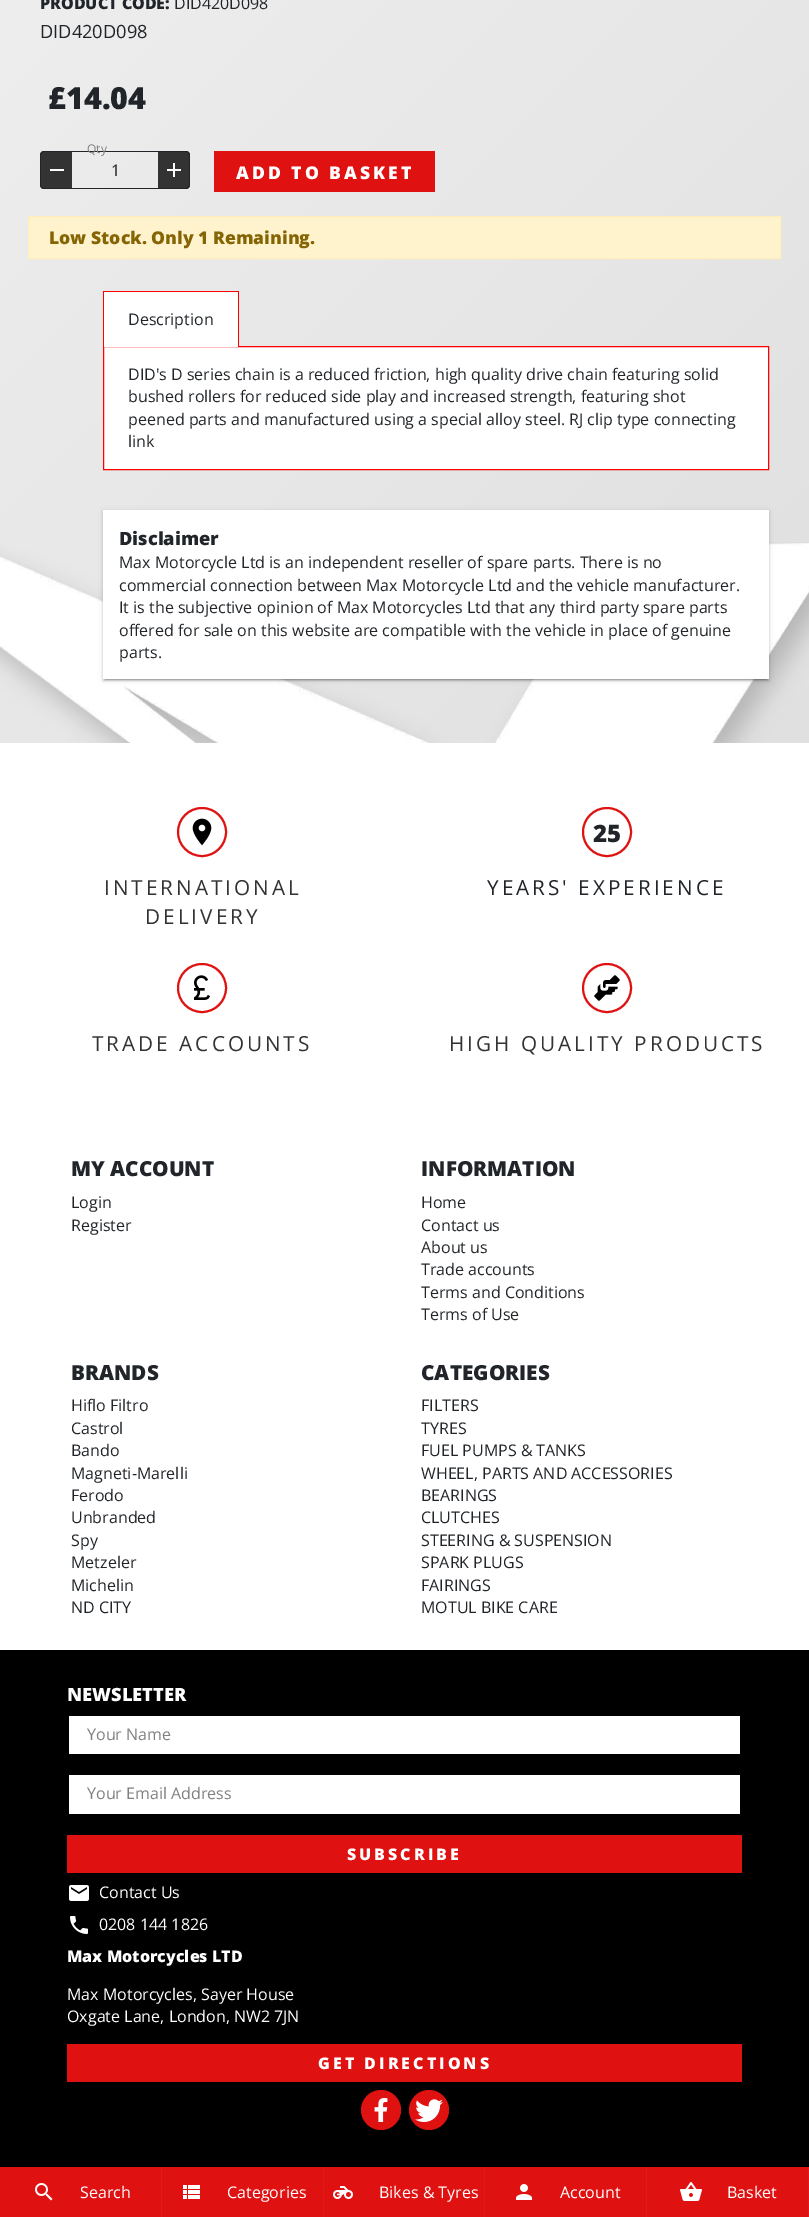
%!PS-Adobe-3.0
%%BoundingBox: 0 0 809 2217
%%LanguageLevel: 3
%%Pages: 1
%%EndComments
%%BeginProlog
/m { moveto } bind def
/l { lineto } bind def
/c { curveto } bind def
/h { closepath } bind def
/f { fill } bind def
/S { stroke } bind def
/q { gsave } bind def
/Q { grestore } bind def
/w { setlinewidth } bind def
/fn { [ exch dup neg 0 0 3 -1 roll 0 0 ] selectfont } def
/tx { moveto show } def
/bx { rectfill } def
/al { dup .setfillconstantalpha .setstrokeconstantalpha } def
/ci { newpath 0 360 arc closepath } def
/rr { 5 dict begin { /r /h /w /y /x } { exch def } forall
  x r add y moveto x w add y 2 copy h add r arct x w add y h add x 1 index r arct
  x y h add x y r arct x y 2 copy exch w add exch r arct closepath end } def
/sh { 12 dict begin { /a /b /q /h /w /y /x } { exch def } forall gsave /was 0 def
  9 -2 -9 { dup b mul 4 div /e exch def 1 sub .425 mul 2.718 exch exp 1 add a .99 .min exch div /now exch def
    1 1 now sub 1 was sub div sub al /was now def
    w h .min e 2 mul add 0 gt { x e sub y e sub w e 2 mul add h e 2 mul add
      q e add b .6 mul add w h .min 2 div e add .min 0 .max rr fill } if } for grestore end } def
/im { 5 dict begin { /h /w /y /x /name } { exch def } forall
  gsave x y translate w h scale
  w h 8 [w 0 0 h 0 0] name (r) file false 3 colorimage grestore end } def
%%EndProlog
%%BeginSetup
<< /PageSize [809 2217] /PageUsesTransparency true >> setpagedevice
%%EndSetup
%%Page: 1 1
0 .pushpdf14devicefilter
0 2217 translate 1 -1 scale
4 setmiterlimit
1 setgray
0 0 809 2217 bx
q 0 0 m 809 0 l 809 743 l 0 743 l h clip newpath
<< /ShadingType 2 /ColorSpace /DeviceRGB /Coords [-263 -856 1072 480] /Extend [true true] /Function << /FunctionType 3 /Domain [0 1] /Functions [<< /FunctionType 2 /Domain [0 1] /C0 [0.969 0.969 0.969] /C1 [0.969 0.969 0.969] /N 1 >> << /FunctionType 2 /Domain [0 1] /C0 [0.969 0.969 0.969] /C1 [0.878 0.878 0.878] /N 1 >>] /Bounds [0.01] /Encode [0 1 0 1] >> >> shfill Q
/OpenSans-ExtraBold 16 fn
0.129 0.145 0.161 setrgbcolor
(PRODUCT CODE:) 40 9 tx
/OpenSans-Regular 16 fn
(DID420D098) 174 9 tx
/OpenSans-Regular 18.25 fn
(DID420D098) 40 38 tx
/OpenSans-ExtraBold 30.5 fn
(£14.04) 48 109 tx
0.2 setgray
44 151 m 72 151 l 72 189 l 44 189 l 42 189 40 187 40 185 c 40 155 l 40 153 42 151 44 151 c h f
0.129 0.145 0.161 setrgbcolor
44 151 m 72 151 l 72 189 l 44 189 l 42 189 40 187 40 185 c 40 155 l 40 153 42 151 44 151 c h 44 152 m 72 152 l 72 188 l 44 188 l 42.5 188 41 186.5 41 185 c 41 155 l 41 153.5 42.5 152 44 152 c h eofill
1 setgray
50 169 14 2 bx
0.129 0.145 0.161 setrgbcolor
72 151 86 1 bx
/OpenSans-Regular 12 fn
0.502 setgray
(Qty) 87 153 tx
/OpenSans-Regular 16 fn
0.129 0.145 0.161 setrgbcolor
(1) 111 176 tx
72 188 86 1 bx
0.2 setgray
158 151 m 186 151 l 188 151 190 153 190 155 c 190 185 l 190 187 188 189 186 189 c 158 189 l h f
0.129 0.145 0.161 setrgbcolor
158 151 m 186 151 l 188 151 190 153 190 155 c 190 185 l 190 187 188 189 186 189 c 158 189 l h 158 152 m 186 152 l 187.5 152 189 153.5 189 155 c 189 185 l 189 186.5 187.5 188 186 188 c 158 188 l h eofill
(image0.raw) 167 163 14 14 im
0.878 0.067 0.067 setrgbcolor
214 151 221 41 bx
/OpenSans-ExtraBold 17.6 fn
1 setgray
236 179 m 3 0 (ADD TO BASKET) ashow
1 0.953 0.804 setrgbcolor
28.5 216.5 m 780.5 216.5 l 780.5 258.5 l 28.5 258.5 l h q f Q
1 0.933 0.729 setrgbcolor
S
0.522 0.392 0.016 setrgbcolor
(Low Stock. Only 1 Remaining.) 49 244 tx
1 setgray
103.5 346.5 m 768.5 346.5 l 768.5 469.5 l 103.5 469.5 l h q f Q
1 0 0 setrgbcolor
S
1 setgray
104 292 134 55 bx
1 0 0 setrgbcolor
103 291 136 1 bx
238 291 1 55 bx
103 291 1 55 bx
/OpenSans-Regular 16 fn
0.129 0.145 0.161 setrgbcolor
(Description) 128 325 tx
(DID's D series chain is a reduced friction, high quality drive chain featuring solid) 128 380 tx
(bushed rollers for reduced side play and increased strength, featuring shot) 128 402 tx
(peened parts and manufactured using a special alloy steel. RJ clip type connecting) 128 425 tx
(link) 128 447 tx
(image1.raw) 0 542 809 201 im
0 setgray
103 511 666 169 0 2.5 0.12 sh
103 512 666 169 0 1 0.14 sh
105 515 662 165 0 0.5 0.2 sh
1 setgray
103 510 666 169 bx
/OpenSans-ExtraBold 18.25 fn
0.129 0.145 0.161 setrgbcolor
(Disclaimer) 119 545 tx
/OpenSans-Regular 16 fn
(Max Motorcycle Ltd is an independent reseller of spare parts. There is no) 119 568 tx
(commercial connection between Max Motorcycle Ltd and the vehicle manufacturer.) 119 591 tx
(It is the subjective opinion of Max Motorcycles Ltd that any third party spare parts) 119 613 tx
(offered for sale on this website are compatible with the vehicle in place of genuine) 119 636 tx
(parts.) 119 658 tx
0.878 0.067 0.067 setrgbcolor
2 w
607 832 24 ci S
/OpenSans-ExtraBold 24 fn
0.129 0.145 0.161 setrgbcolor
(25) 593 842 tx
/OpenSans-Regular 20.75 fn
487 895 m 3 0 (YEARS' EXPERIENCE) ashow
0.878 0.067 0.067 setrgbcolor
202 832 24 ci S
(image2.raw) 192 818 20 28 im
0.2 setgray
104 895 m 3 0 (INTERNATIONAL) ashow
145 924 m 3 0 (DELIVERY) ashow
0.878 0.067 0.067 setrgbcolor
202 988 24 ci S
(image3.raw) 194 975 16 25 im
0.2 setgray
92 1051 m 3 0 (TRADE ACCOUNTS) ashow
0.878 0.067 0.067 setrgbcolor
607 988 24 ci S
(image4.raw) 594 975 26 26 im
0.2 setgray
449 1051 m 3 0 (HIGH QUALITY PRODUCTS) ashow
/OpenSans-ExtraBold 20.75 fn
0.129 0.145 0.161 setrgbcolor
(MY ACCOUNT) 71 1176 tx
/OpenSans-Regular 16 fn
(Login) 71 1208 tx
(Register) 71 1231 tx
/OpenSans-ExtraBold 20.75 fn
(INFORMATION) 421 1176 tx
/OpenSans-Regular 16 fn
(Home) 421 1208 tx
(Contact us) 421 1231 tx
(About us) 421 1253 tx
(Trade accounts) 421 1275 tx
(Terms and Conditions) 421 1298 tx
(Terms of Use) 421 1320 tx
/OpenSans-ExtraBold 20.75 fn
(BRANDS) 71 1380 tx
/OpenSans-Regular 16 fn
(Hiflo Filtro) 71 1411 tx
(Castrol) 71 1434 tx
(Bando) 71 1456 tx
(Magneti-Marelli) 71 1479 tx
(Ferodo) 71 1501 tx
(Unbranded) 71 1523 tx
(Spy) 71 1546 tx
(Metzeler) 71 1568 tx
(Michelin) 71 1591 tx
(ND CITY) 71 1613 tx
/OpenSans-ExtraBold 20.75 fn
(CATEGORIES) 421 1380 tx
/OpenSans-Regular 16 fn
(FILTERS) 421 1411 tx
(TYRES) 421 1434 tx
(FUEL PUMPS & TANKS) 421 1456 tx
(WHEEL, PARTS AND ACCESSORIES) 421 1479 tx
(BEARINGS) 421 1501 tx
(CLUTCHES) 421 1523 tx
(STEERING & SUSPENSION) 421 1546 tx
(SPARK PLUGS) 421 1568 tx
(FAIRINGS) 421 1591 tx
(MOTUL BIKE CARE) 421 1613 tx
0 setgray
0 1650 809 517 bx
/OpenSans-ExtraBold 18.25 fn
1 setgray
(NEWSLETTER) 67 1701 tx
69 1716 671 38 bx
/OpenSans-Regular 16 fn
0.502 setgray
(Your Name) 87 1740 tx
1 setgray
69 1775 671 39 bx
0.502 setgray
(Your Email Address) 87 1799 tx
0.878 0.067 0.067 setrgbcolor
67 1835 675 38 bx
/OpenSans-ExtraBold 16 fn
1 setgray
347 1860 m 3 0 (SUBSCRIBE) ashow
(image5.raw) 69 1885 20 16 im
/OpenSans-Regular 16 fn
(Contact Us) 99 1898 tx
(image6.raw) 70 1916 18 18 im
(0208 144 1826) 99 1930 tx
/OpenSans-ExtraBold 16 fn
(Max Motorcycles LTD) 67 1962 tx
/OpenSans-Regular 16 fn
(Max Motorcycles, Sayer House) 67 2000 tx
(Oxgate Lane, London, NW2 7JN) 67 2022 tx
0.878 0.067 0.067 setrgbcolor
67 2044 675 38 bx
/OpenSans-ExtraBold 16 fn
1 setgray
318 2069 m 3 0 (GET DIRECTIONS) ashow
0.878 0.067 0.067 setrgbcolor
381 2110 20 ci f
(image7.raw) 374 2098 14 24 im
429 2110 20 ci f
(image8.raw) 415 2099 28 23 im
0 2167 808 50 bx
(image9.raw) 35 2183 18 18 im
/OpenSans-Regular 16 fn
1 setgray
(Search) 80 2198 tx
0.882 0.106 0.106 setrgbcolor
161 2167 1 50 bx
(image10.raw) 183 2185 17 14 im
1 setgray
(Categories) 227 2198 tx
0.882 0.106 0.106 setrgbcolor
323 2167 1 50 bx
(image11.raw) 333 2186 20 13 im
1 setgray
(Bikes & Tyres) 379 2198 tx
0.882 0.106 0.106 setrgbcolor
484 2167 1 50 bx
(image12.raw) 516 2184 16 16 im
1 setgray
(Account) 560 2198 tx
0.882 0.106 0.106 setrgbcolor
646 2167 1 50 bx
(image13.raw) 680 2182 22 19 im
1 setgray
(Basket) 727 2198 tx
0.882 0.106 0.106 setrgbcolor
808 2167 1 50 bx
.poppdf14devicefilter showpage
%%EOF
